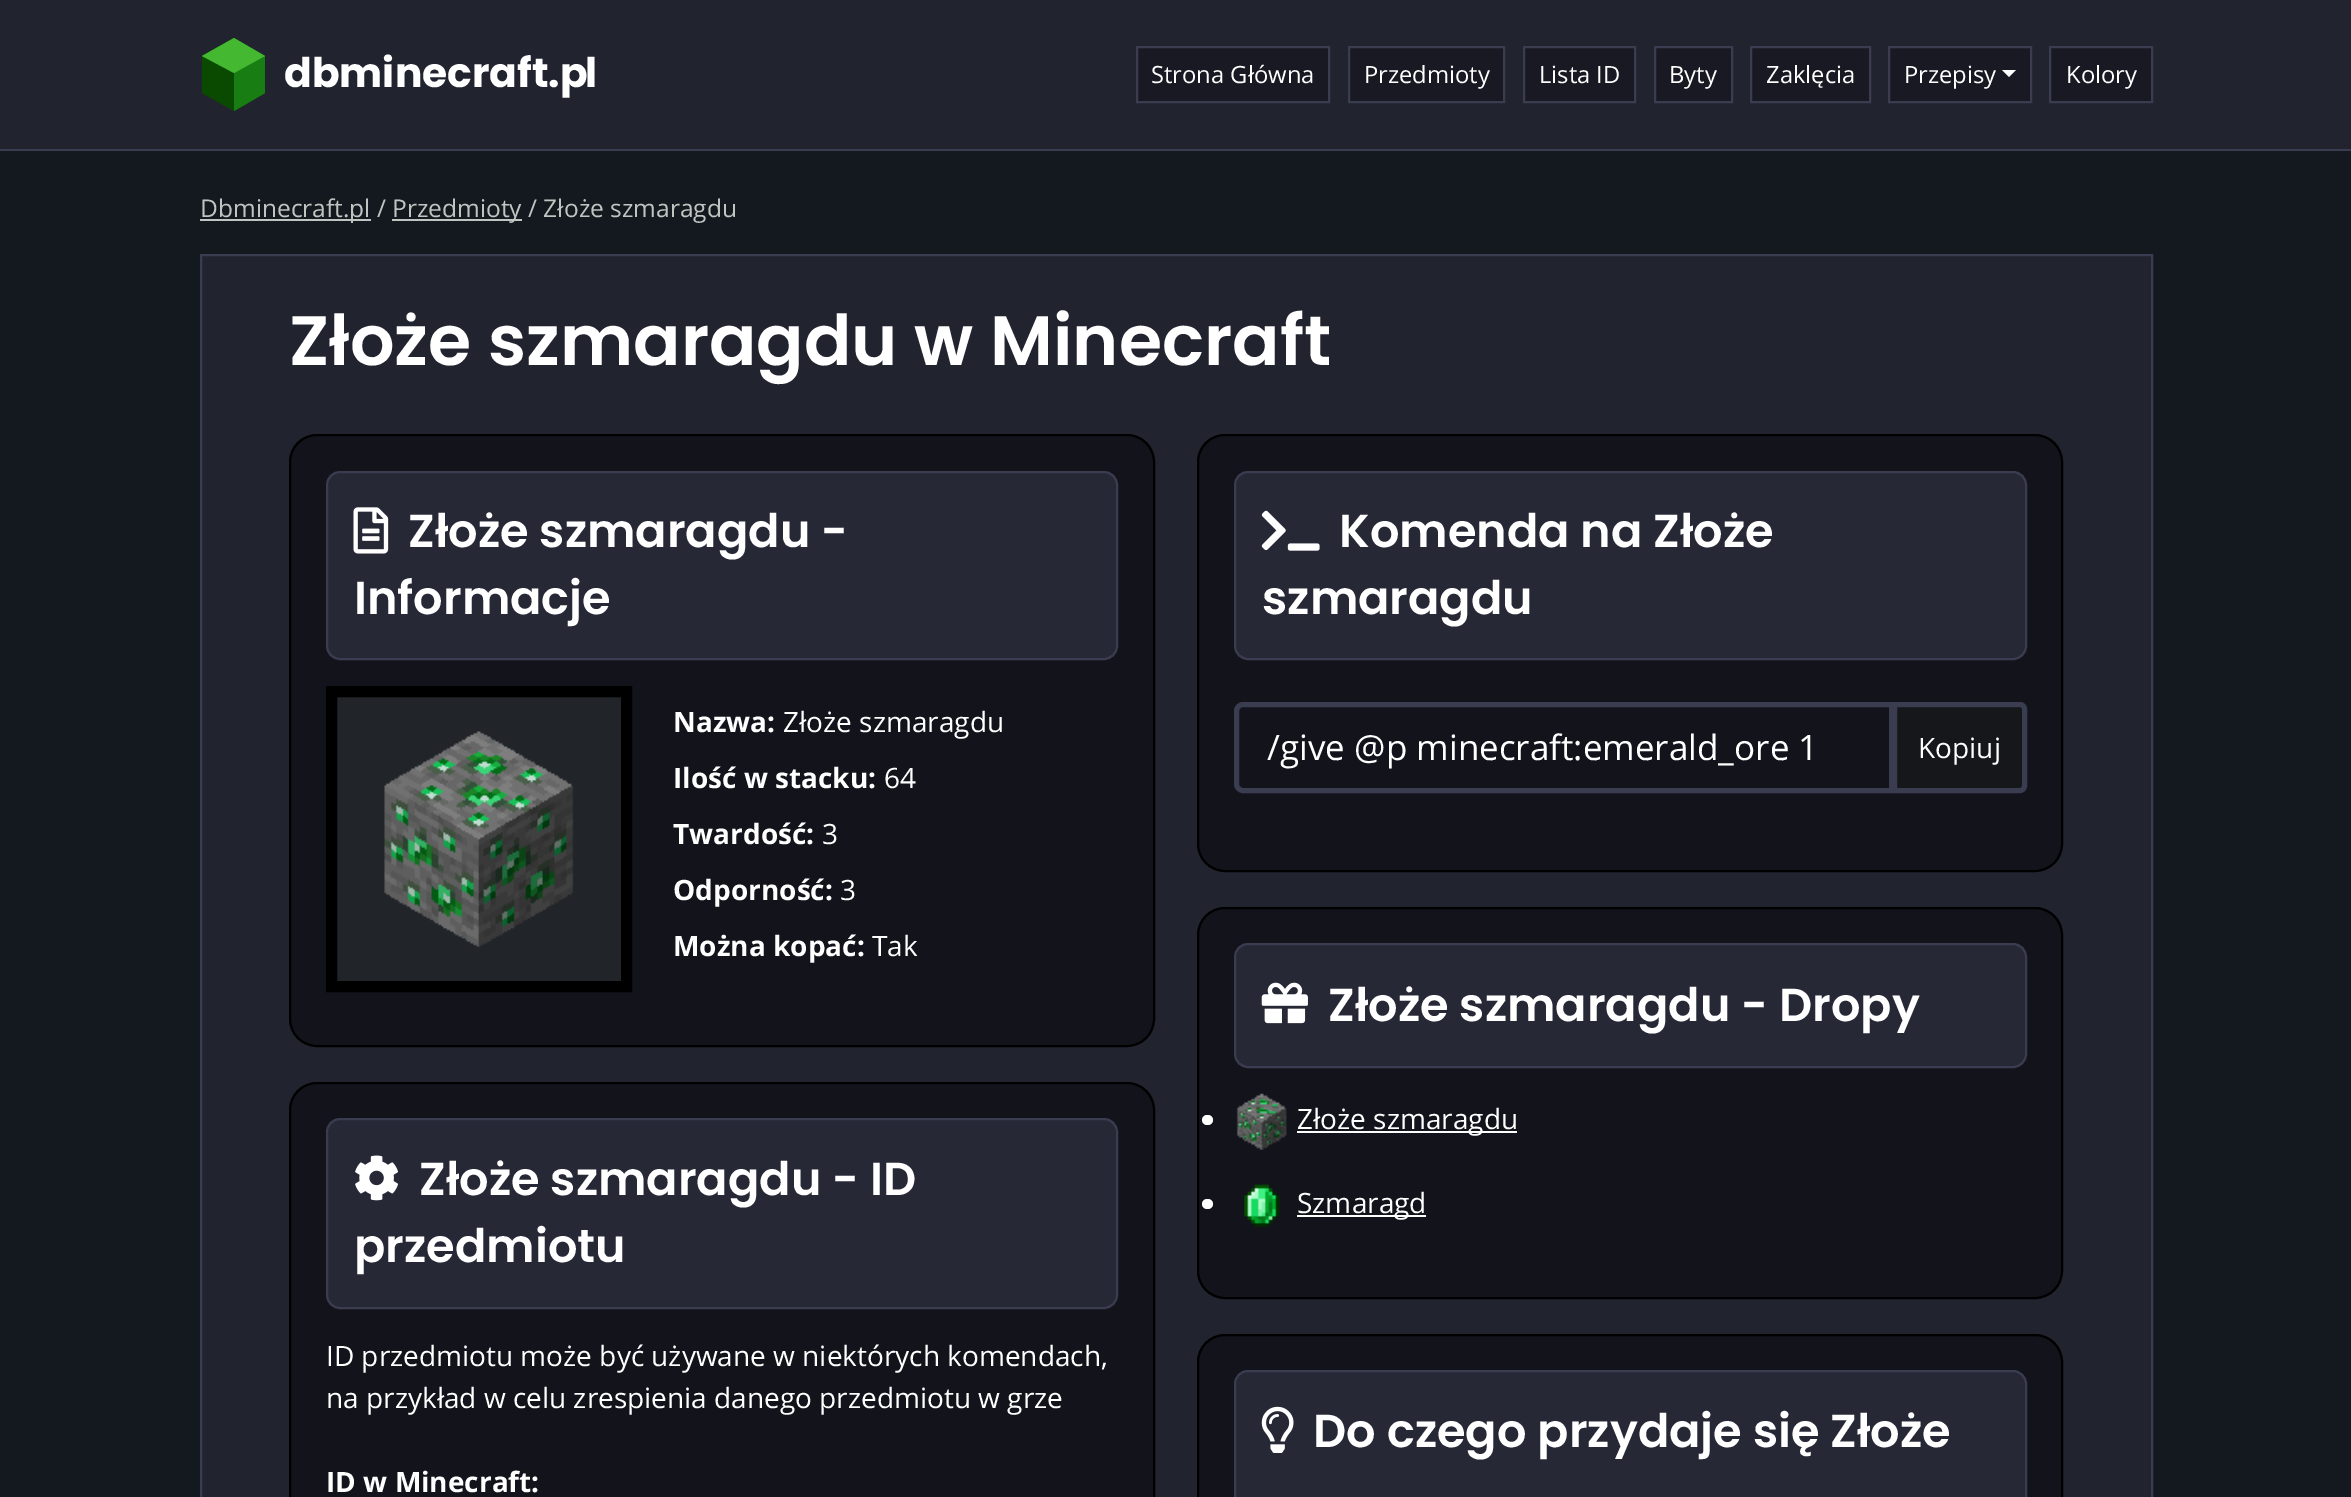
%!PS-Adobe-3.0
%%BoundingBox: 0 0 2351 1497
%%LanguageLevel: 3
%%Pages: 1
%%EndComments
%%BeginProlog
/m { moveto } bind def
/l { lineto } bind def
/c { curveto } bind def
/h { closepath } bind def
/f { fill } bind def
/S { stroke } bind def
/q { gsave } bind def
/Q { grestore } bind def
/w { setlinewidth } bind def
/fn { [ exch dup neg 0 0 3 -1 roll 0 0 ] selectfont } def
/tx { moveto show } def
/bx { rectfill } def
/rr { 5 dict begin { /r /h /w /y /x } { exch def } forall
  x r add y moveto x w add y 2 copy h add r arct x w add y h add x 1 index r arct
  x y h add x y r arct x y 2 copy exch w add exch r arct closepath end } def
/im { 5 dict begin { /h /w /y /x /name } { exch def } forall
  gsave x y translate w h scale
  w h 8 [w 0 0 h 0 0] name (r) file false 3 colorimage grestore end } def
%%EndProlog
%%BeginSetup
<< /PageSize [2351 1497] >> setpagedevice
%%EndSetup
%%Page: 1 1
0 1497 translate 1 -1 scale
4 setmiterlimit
0.078 0.098 0.125 setrgbcolor
0 0 2351 1497 bx
0.129 0.137 0.184 setrgbcolor
0 0 2351 149 bx
0.227 0.235 0.314 setrgbcolor
0 149 2351 2 bx
/Poppins-Bold 40.75 fn
1 setgray
(dbminecraft.p) 284 87 tx
0.039 0.29 0 setrgbcolor
265 93 m 265 56 l 264 56 l 234 38 l 202 56 l 202 93 l 234 111 l h f
0.094 0.494 0.078 setrgbcolor
234 73 m 265 56 l 265 93 l 234 111 l f
0.263 0.722 0.188 setrgbcolor
265 56 m 234 73 l 202 56 l 234 38 l f
1 setgray
(l) 585 87 tx
0.094 0.098 0.133 setrgbcolor
1137 47 m 1329 47 l 1329 102 l 1137 102 l h q f Q
0.227 0.235 0.314 setrgbcolor
2 w
S
/OpenSans-Regular 23.75 fn
1 setgray
(Strona Główna) 1151 83 tx
0.094 0.098 0.133 setrgbcolor
1349 47 m 1504 47 l 1504 102 l 1349 102 l h q f Q
0.227 0.235 0.314 setrgbcolor
S
1 setgray
(Przedmioty) 1364 83 tx
0.094 0.098 0.133 setrgbcolor
1524 47 m 1635 47 l 1635 102 l 1524 102 l h q f Q
0.227 0.235 0.314 setrgbcolor
S
1 setgray
(Lista ID) 1539 83 tx
0.094 0.098 0.133 setrgbcolor
1655 47 m 1732 47 l 1732 102 l 1655 102 l h q f Q
0.227 0.235 0.314 setrgbcolor
S
1 setgray
(Byty) 1669 83 tx
0.094 0.098 0.133 setrgbcolor
1751 47 m 1870 47 l 1870 102 l 1751 102 l h q f Q
0.227 0.235 0.314 setrgbcolor
S
1 setgray
(Zaklęcia) 1766 83 tx
0.094 0.098 0.133 setrgbcolor
1889 47 m 2031 47 l 2031 102 l 1889 102 l h q f Q
0.227 0.235 0.314 setrgbcolor
S
1 setgray
(Przepisy) 1904 83 tx
2002 70 m 2016 70 l 2009 77 l h f
0.094 0.098 0.133 setrgbcolor
2050 47 m 2152 47 l 2152 102 l 2050 102 l h q f Q
0.227 0.235 0.314 setrgbcolor
S
1 setgray
(Kolory) 2066 83 tx
0.757 0.773 0.761 setrgbcolor
200 219 171 2 bx
/OpenSans-Regular 24.5 fn
(Dbminecraft.pl /) 200 217 tx
392 219 130 2 bx
(Przedmioty / Złoże szmaragdu) 392 217 tx
0.129 0.137 0.184 setrgbcolor
201 255 m 2152 255 l 2152 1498 l 201 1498 l h q f Q
0.227 0.235 0.314 setrgbcolor
S
/Poppins-SemiBold 70 fn
1 setgray
(Złoże szmaragdu w Minecraft) 289 365 tx
0.075 0.078 0.106 setrgbcolor
290 435 864 611 27 rr q f Q
0 setgray
S
0.149 0.157 0.212 setrgbcolor
327 472 790 187 13 rr q f Q
0.227 0.235 0.314 setrgbcolor
S
(image0.raw) 353 507 36 47 im
/Poppins-SemiBold 46.25 fn
1 setgray
(Złoże szmaragdu -) 408 547 tx
(Informacje) 354 614 tx
0.129 0.145 0.161 setrgbcolor
331.5 691.5 m 626.5 691.5 l 626.5 986.5 l 331.5 986.5 l h q f Q
0 setgray
11 w
S
(image1.raw) 384 731 190 216 im
/OpenSans-Bold 28 fn
1 setgray
(Nazwa:) 673 732 tx
/OpenSans-Regular 28 fn
(Złoże szmaragdu) 783 732 tx
/OpenSans-Bold 28 fn
(Ilość w stacku:) 673 788 tx
/OpenSans-Regular 28 fn
(64) 884 788 tx
/OpenSans-Bold 28 fn
(Twardość:) 673 844 tx
/OpenSans-Regular 28 fn
(3) 822 844 tx
/OpenSans-Bold 28 fn
(Odporność:) 673 900 tx
/OpenSans-Regular 28 fn
(3) 840 900 tx
/OpenSans-Bold 28 fn
(Można kopać:) 673 956 tx
/OpenSans-Regular 28 fn
(Tak) 872 956 tx
0.075 0.078 0.106 setrgbcolor
290 1083 864 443 27 rr q f Q
0 setgray
2 w
S
0.149 0.157 0.212 setrgbcolor
327 1119 790 189 13 rr q f Q
0.227 0.235 0.314 setrgbcolor
S
(image2.raw) 355 1155 43 46 im
/Poppins-SemiBold 46.25 fn
1 setgray
(Złoże szmaragdu - ID) 419 1195 tx
(przedmiotu) 354 1262 tx
/OpenSans-Regular 28 fn
(ID przedmiotu może być używane w niektórych komendach,) 326 1366 tx
(na przykład w celu zrespienia danego przedmiotu w grze) 326 1408 tx
/OpenSans-Bold 28 fn
(ID w Minecraft:) 326 1492 tx
0.075 0.078 0.106 setrgbcolor
1198 435 864 436 27 rr q f Q
0 setgray
S
0.149 0.157 0.212 setrgbcolor
1235 472 791 187 13 rr q f Q
0.227 0.235 0.314 setrgbcolor
S
(image3.raw) 1261 510 59 41 im
/Poppins-SemiBold 46.25 fn
1 setgray
(Komenda na Złoże) 1339 547 tx
(szmaragdu) 1262 614 tx
0.082 0.09 0.102 setrgbcolor
1894.5 704.5 m 2020 704.5 l 2022.5 704.5 2024.5 706.5 2024.5 709 c 2024.5 786 l 2024.5 788.5 2022.5 790.5 2020 790.5 c 1894.5 790.5 l h q f Q
0.227 0.235 0.314 setrgbcolor
5 w
S
0.075 0.078 0.106 setrgbcolor
1243 704.5 m 1891.5 704.5 l 1891.5 790.5 l 1243 790.5 l 1239.5 790.5 1236.5 787.5 1236.5 784 c 1236.5 711 l 1236.5 707.5 1239.5 704.5 1243 704.5 c h q f Q
0.227 0.235 0.314 setrgbcolor
S
/OpenSans-Regular 35 fn
1 setgray
(/give @p minecraft:emerald_ore 1) 1267 760 tx
/OpenSans-Regular 28 fn
(Kopiuj) 1918 758 tx
0.075 0.078 0.106 setrgbcolor
1198 908 864 390 27 rr q f Q
0 setgray
2 w
S
0.149 0.157 0.212 setrgbcolor
1235 944 791 123 13 rr q f Q
0.227 0.235 0.314 setrgbcolor
S
(image4.raw) 1261 982 47 42 im
/Poppins-SemiBold 46.25 fn
1 setgray
(Złoże szmaragdu - Dropy) 1328 1021 tx
1202 1115 11 10 5 rr f
(image5.raw) 1236 1093 51 57 im
1297 1131 220 2 bx
/OpenSans-Regular 28 fn
(Złoże szmaragdu) 1297 1129 tx
1202 1199 11 10 5 rr f
(image6.raw) 1244 1184 36 43 im
1297 1215 129 2 bx
(Szmaragd) 1297 1213 tx
0.075 0.078 0.106 setrgbcolor
1198 1335 864 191 27 rr q f Q
0 setgray
S
0.149 0.157 0.212 setrgbcolor
1235 1371 791 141 13 rr q f Q
0.227 0.235 0.314 setrgbcolor
S
(image7.raw) 1261 1406 33 47 im
/Poppins-SemiBold 46.25 fn
1 setgray
(Do czego przydaje się Złoże) 1313 1447 tx
showpage
%%EOF
